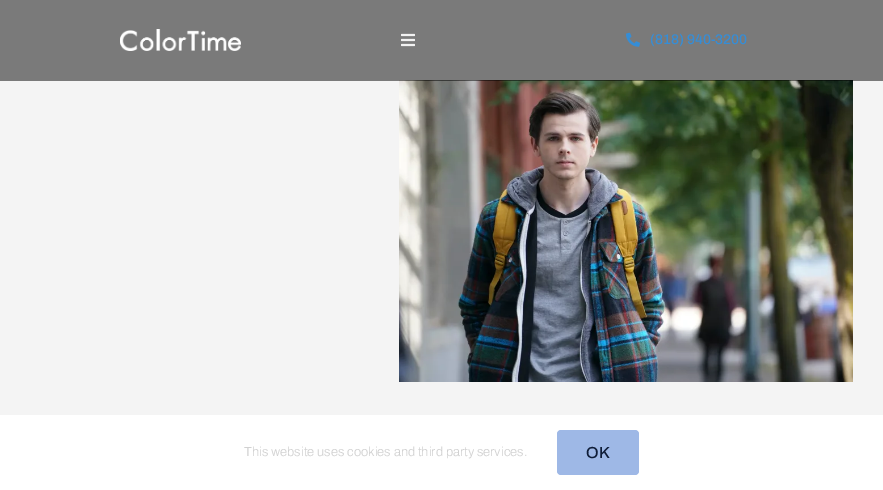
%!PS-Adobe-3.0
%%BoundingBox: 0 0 883 490
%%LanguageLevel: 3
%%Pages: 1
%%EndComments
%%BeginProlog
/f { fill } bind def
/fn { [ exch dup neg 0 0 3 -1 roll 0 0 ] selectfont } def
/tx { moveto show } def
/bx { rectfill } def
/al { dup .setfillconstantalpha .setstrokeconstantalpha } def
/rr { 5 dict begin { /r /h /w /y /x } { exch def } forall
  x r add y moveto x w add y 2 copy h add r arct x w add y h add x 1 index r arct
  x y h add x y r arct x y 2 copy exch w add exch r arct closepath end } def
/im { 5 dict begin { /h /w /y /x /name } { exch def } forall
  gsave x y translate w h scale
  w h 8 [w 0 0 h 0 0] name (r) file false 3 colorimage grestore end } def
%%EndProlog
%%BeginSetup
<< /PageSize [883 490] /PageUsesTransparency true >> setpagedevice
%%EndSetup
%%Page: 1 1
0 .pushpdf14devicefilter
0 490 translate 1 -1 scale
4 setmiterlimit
0.957 setgray
0 0 883 490 bx
(image3.raw) 399 80 454 302 im
0.5 al
0 setgray
0 0 883 81 bx
1 al
(image0.raw) 120 29 121 22 im
(image1.raw) 401 33 14 14 im
(image2.raw) 626 32 14 15 im
/Archivo-Medium 14 fn
0.208 0.553 0.839 setrgbcolor
(\(818\) 940-3200) 650 44 tx
1 setgray
0 415 883 75 bx
/Archivo-Light 13 fn
0.82 setgray
(This website uses cookies and third party services.) 244 456 tx
0.62 0.722 0.902 setrgbcolor
557 430 82 45 4 rr f
/Archivo-Medium 16 fn
0.059 0.114 0.22 setrgbcolor
(OK) 586 458 tx
.poppdf14devicefilter showpage
%%EOF
